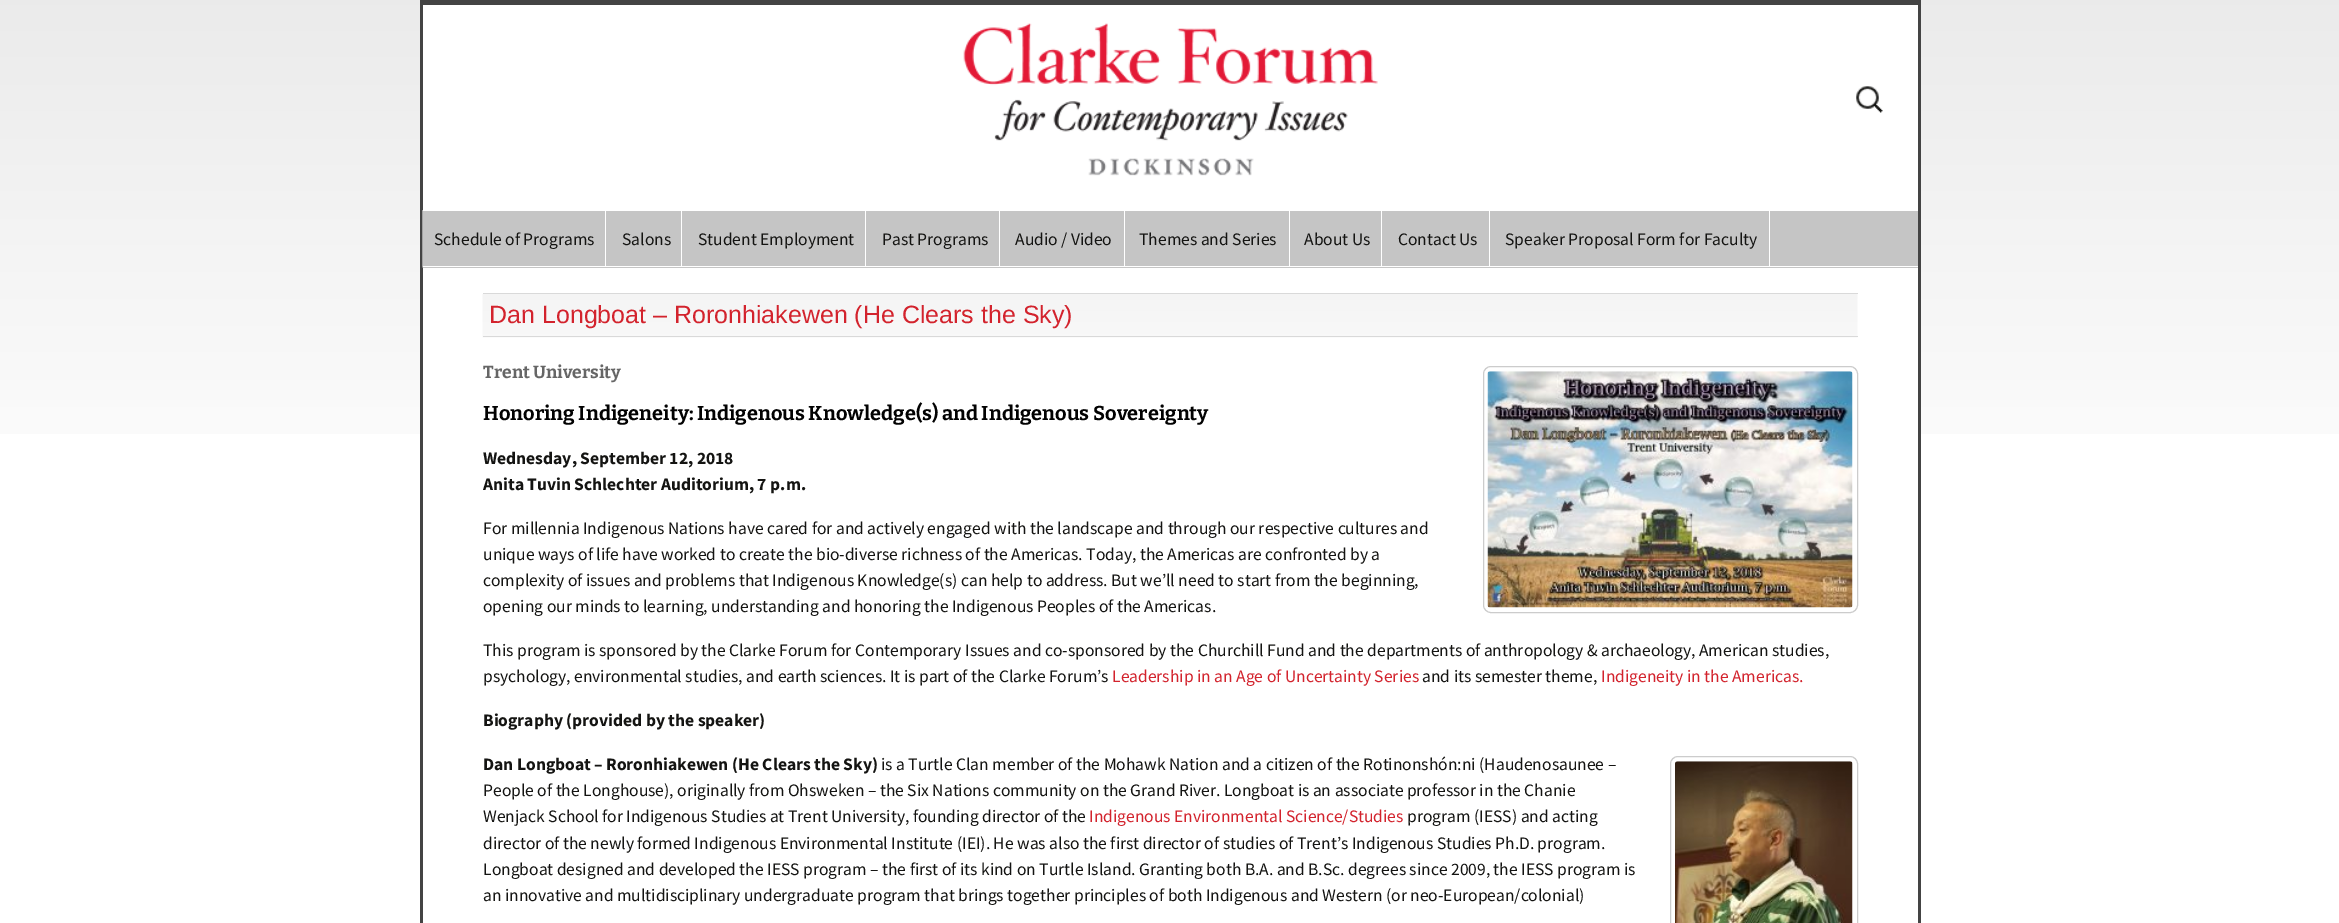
%!PS-Adobe-3.0
%%BoundingBox: 0 0 2339 923
%%LanguageLevel: 3
%%Pages: 1
%%EndComments
%%BeginProlog
/S { stroke } bind def
/fn { [ exch dup neg 0 0 3 -1 roll 0 0 ] selectfont } def
/tx { moveto show } def
/bx { rectfill } def
/rr { 5 dict begin { /r /h /w /y /x } { exch def } forall
  x r add y moveto x w add y 2 copy h add r arct x w add y h add x 1 index r arct
  x y h add x y r arct x y 2 copy exch w add exch r arct closepath end } def
/im { 5 dict begin { /h /w /y /x /name } { exch def } forall
  gsave x y translate w h scale
  w h 8 [w 0 0 h 0 0] name (r) file false 3 colorimage grestore end } def
%%EndProlog
%%BeginSetup
<< /PageSize [2339 923] >> setpagedevice
%%EndSetup
%%Page: 1 1
0 923 translate 1 -1 scale
4 setmiterlimit
1 setgray
0 0 2339 923 bx
(image0.raw) 0 0 2339 434 im
423 5 1495 429 bx
0.267 setgray
420 0 1500 5 bx
1918 0 3 923 bx
420 0 3 923 bx
(image1.raw) 963 23 415 153 im
(image2.raw) 1856 86 27 27 im
(image3.raw) 422 210 1 58 im
0.773 setgray
423 211 1495 57 bx
1 setgray
423 266 1495 1 bx
605 211 1 55 bx
/SourceSansPro-Regular 17.5 fn
0.078 0.078 0.071 setrgbcolor
(Schedule of Programs) 434 245 tx
1 setgray
681 211 1 55 bx
0.078 0.078 0.071 setrgbcolor
(Salons) 622 245 tx
1 setgray
865 211 1 55 bx
0.078 0.078 0.071 setrgbcolor
(Student Employment) 698 245 tx
1 setgray
999 211 1 55 bx
0.078 0.078 0.071 setrgbcolor
(Past Programs) 882 245 tx
1 setgray
1124 211 1 55 bx
0.078 0.078 0.071 setrgbcolor
(Audio / Video) 1015 245 tx
1 setgray
1289 211 1 55 bx
0.078 0.078 0.071 setrgbcolor
(Themes and Series) 1139 245 tx
1 setgray
1381 211 1 55 bx
0.078 0.078 0.071 setrgbcolor
(About Us) 1304 245 tx
1 setgray
1489 211 1 55 bx
0.078 0.078 0.071 setrgbcolor
(Contact Us) 1398 245 tx
1 setgray
1769 211 1 55 bx
0.078 0.078 0.071 setrgbcolor
(Speaker Proposal Form for Faculty) 1505 245 tx
(image4.raw) 482 294 1376 44 im
0.851 setgray
483 293 1375 1 bx
483 336 1375 1 bx
/LiberationSans-Regular 25 fn
0.827 0.137 0.176 setrgbcolor
(Dan Longboat – Roronhiakewen \(He Clears the Sky\)) 489 323 tx
/Bitter-Bold 17.5 fn
0.4 setgray
(Trent University) 483 378 tx
0.8 setgray
1483.5 366.5 374 246 7.5 rr S
(image5.raw) 1487 371 366 237 im
/Bitter-Bold 20 fn
0.008 setgray
(Honoring Indigeneity: Indigenous Knowledge\(s\) and Indigenous Sovereignty) 483 420 tx
/SourceSansPro-Bold 17.5 fn
0.078 0.078 0.071 setrgbcolor
(Wednesday, September 12, 2018) 483 464 tx
(Anita Tuvin Schlechter Auditorium, 7 p.m.) 483 490 tx
/SourceSansPro-Regular 17.5 fn
(For millennia Indigenous Nations have cared for and actively engaged with the landscape and through our respective cultures and) 483 534 tx
(unique ways of life have worked to create the bio-diverse richness of the Americas. Today, the Americas are confronted by a) 483 560 tx
(complexity of issues and problems that Indigenous Knowledge\(s\) can help to address. But we’ll need to start from the beginning,) 483 586 tx
(opening our minds to learning, understanding and honoring the Indigenous Peoples of the Americas.) 483 612 tx
(This program is sponsored by the Clarke Forum for Contemporary Issues and co-sponsored by the Churchill Fund and the departments of anthropology & archaeology, American studies,) 483 656 tx
(psychology, environmental studies, and earth sciences. It is part of the Clarke Forum’s) 483 682 tx
0.827 0.137 0.176 setrgbcolor
(Leadership in an Age of Uncertainty Series) 1112 682 tx
0.078 0.078 0.071 setrgbcolor
(and its semester theme,) 1422 682 tx
0.827 0.137 0.176 setrgbcolor
(Indigeneity in the Americas.) 1601 682 tx
/SourceSansPro-Bold 17.5 fn
0.078 0.078 0.071 setrgbcolor
(Biography \(provided by the speaker\)) 483 726 tx
(Dan Longboat – Roronhiakewen \(He Clears the Sky\)) 483 770 tx
0.8 setgray
1670.5 756.5 187 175 7.5 rr S
(image6.raw) 1675 761 178 162 im
/SourceSansPro-Regular 17.5 fn
0.078 0.078 0.071 setrgbcolor
(is a Turtle Clan member of the Mohawk Nation and a citizen of the Rotinonshón:ni \(Haudenosaunee –) 881 770 tx
(People of the Longhouse\), originally from Ohsweken – the Six Nations community on the Grand River. Longboat is an associate professor in the Chanie) 483 796 tx
(Wenjack School for Indigenous Studies at Trent University, founding director of the) 483 822 tx
0.827 0.137 0.176 setrgbcolor
(Indigenous Environmental Science/Studies) 1089 822 tx
0.078 0.078 0.071 setrgbcolor
(program \(IESS\) and acting) 1407 822 tx
(director of the newly formed Indigenous Environmental Institute \(IEI\). He was also the first director of studies of Trent’s Indigenous Studies Ph.D. program.) 483 849 tx
(Longboat designed and developed the IESS program – the first of its kind on Turtle Island. Granting both B.A. and B.Sc. degrees since 2009, the IESS program is) 483 875 tx
(an innovative and multidisciplinary undergraduate program that brings together principles of both Indigenous and Western \(or neo-European/colonial\)) 483 901 tx
showpage
%%EOF
